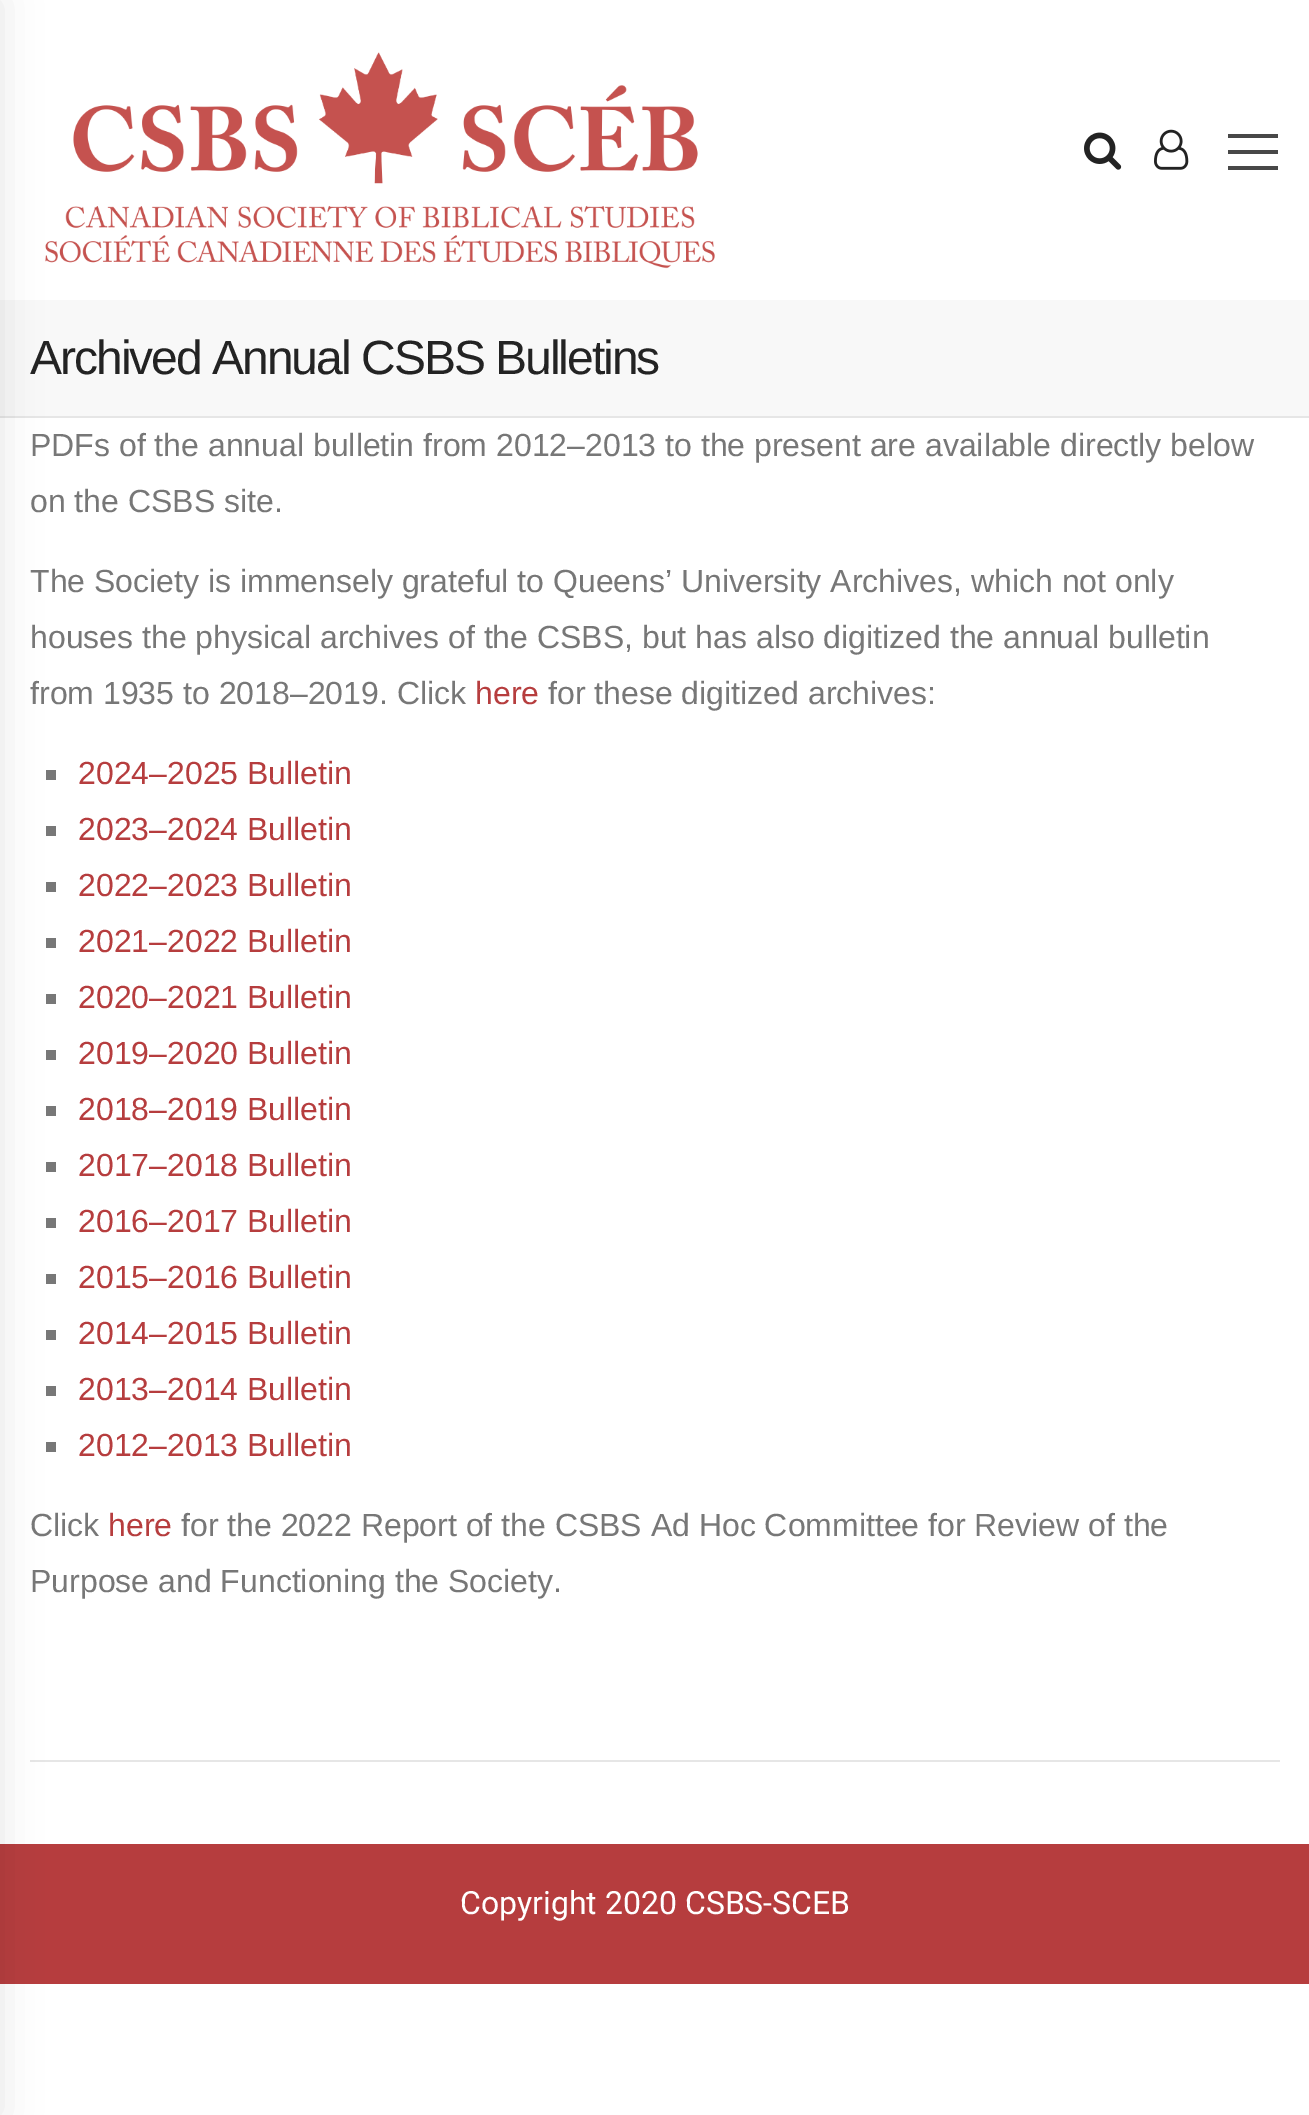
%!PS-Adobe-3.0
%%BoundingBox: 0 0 1309 2115
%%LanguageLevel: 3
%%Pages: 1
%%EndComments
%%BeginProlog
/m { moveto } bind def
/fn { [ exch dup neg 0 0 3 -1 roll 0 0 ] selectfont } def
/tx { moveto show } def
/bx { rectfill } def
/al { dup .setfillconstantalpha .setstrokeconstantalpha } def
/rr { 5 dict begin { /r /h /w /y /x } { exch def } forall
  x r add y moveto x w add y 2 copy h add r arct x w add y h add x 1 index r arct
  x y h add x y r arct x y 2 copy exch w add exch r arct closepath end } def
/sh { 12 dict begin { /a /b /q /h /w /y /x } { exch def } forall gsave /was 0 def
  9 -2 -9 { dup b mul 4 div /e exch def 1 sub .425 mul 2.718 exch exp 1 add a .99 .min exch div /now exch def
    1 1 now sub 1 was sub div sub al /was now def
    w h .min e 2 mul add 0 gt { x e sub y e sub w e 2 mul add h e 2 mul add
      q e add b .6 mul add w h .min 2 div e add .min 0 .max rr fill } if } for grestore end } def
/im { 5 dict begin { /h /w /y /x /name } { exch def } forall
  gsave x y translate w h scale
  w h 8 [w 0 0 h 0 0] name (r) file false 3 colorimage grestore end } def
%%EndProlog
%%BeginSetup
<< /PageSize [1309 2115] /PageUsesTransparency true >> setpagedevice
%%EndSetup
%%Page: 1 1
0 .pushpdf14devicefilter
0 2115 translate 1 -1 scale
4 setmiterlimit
1 setgray
0 0 1309 2115 bx
(image0.raw) 45 52 670 217 im
0.973 setgray
0 300 1309 116 bx
0.902 setgray
0 416 1309 2 bx
0.467 setgray
46 770 10 10 bx
46 826 10 10 bx
46 882 10 10 bx
46 938 10 10 bx
46 994 10 10 bx
46 1050 10 10 bx
46 1106 10 10 bx
46 1162 10 10 bx
46 1218 10 10 bx
46 1274 10 10 bx
46 1330 10 10 bx
46 1386 10 10 bx
46 1442 10 10 bx
0.902 setgray
30 1760 1250 2 bx
0.714 0.239 0.243 setrgbcolor
0 1844 1309 140 bx
0 setgray
-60 0 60 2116 0 20 0.1 sh
(image1.raw) 1084 132 38 38 im
(image2.raw) 1154 129 35 41 im
0.282 setgray
1228 150 50 4 bx
1228 134 50 4 bx
1228 166 50 4 bx
/LiberationSans-Regular 48 fn
0.137 setgray
30 374 m -2 0 (Archived Annual CSBS Bulletins) ashow
/LiberationSans-Regular 32 fn
0.467 setgray
(PDFs of the annual bulletin from 2012–2013 to the present are available directly below) 30 456 tx
(on the CSBS site.) 30 512 tx
(The Society is immensely grateful to Queens’ University Archives, which not only) 30 592 tx
(houses the physical archives of the CSBS, but has also digitized the annual bulletin) 30 648 tx
(from 1935 to 2018–2019. Click) 30 704 tx
0.714 0.239 0.243 setrgbcolor
(here) 475 704 tx
0.467 setgray
(for these digitized archives:) 548 704 tx
0.714 0.239 0.243 setrgbcolor
(2024–2025 Bulletin) 78 784 tx
(2023–2024 Bulletin) 78 840 tx
(2022–2023 Bulletin) 78 896 tx
(2021–2022 Bulletin) 78 952 tx
(2020–2021 Bulletin) 78 1008 tx
(2019–2020 Bulletin) 78 1064 tx
(2018–2019 Bulletin) 78 1120 tx
(2017–2018 Bulletin) 78 1176 tx
(2016–2017 Bulletin) 78 1232 tx
(2015–2016 Bulletin) 78 1288 tx
(2014–2015 Bulletin) 78 1344 tx
(2013–2014 Bulletin) 78 1400 tx
(2012–2013 Bulletin) 78 1456 tx
0.467 setgray
(Click) 30 1536 tx
0.714 0.239 0.243 setrgbcolor
(here) 108 1536 tx
0.467 setgray
(for the 2022 Report of the CSBS Ad Hoc Committee for Review of the) 181 1536 tx
(Purpose and Functioning the Society.) 30 1592 tx
/Roboto-Regular 32 fn
1 setgray
(Copyright 2020 CSBS-SCEB) 460 1914 tx
.poppdf14devicefilter showpage
%%EOF
